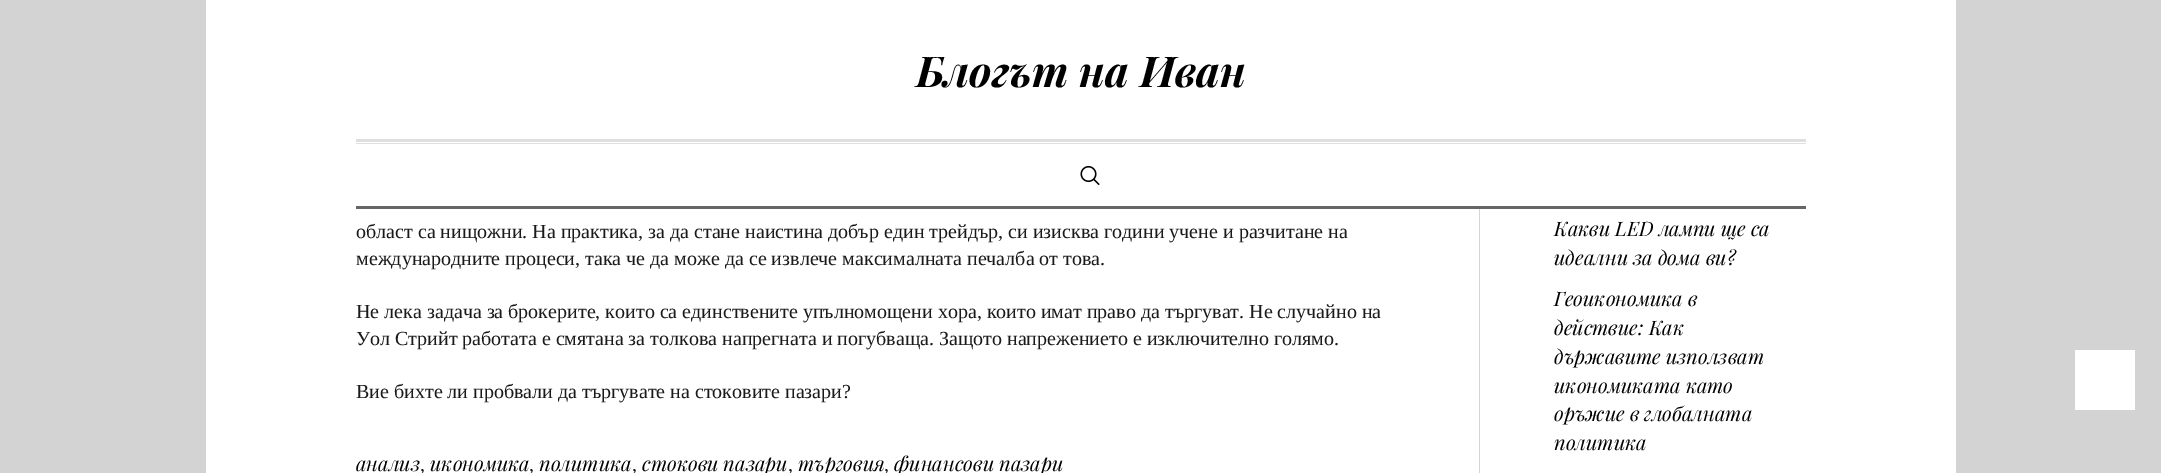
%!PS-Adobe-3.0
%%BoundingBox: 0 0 2161 473
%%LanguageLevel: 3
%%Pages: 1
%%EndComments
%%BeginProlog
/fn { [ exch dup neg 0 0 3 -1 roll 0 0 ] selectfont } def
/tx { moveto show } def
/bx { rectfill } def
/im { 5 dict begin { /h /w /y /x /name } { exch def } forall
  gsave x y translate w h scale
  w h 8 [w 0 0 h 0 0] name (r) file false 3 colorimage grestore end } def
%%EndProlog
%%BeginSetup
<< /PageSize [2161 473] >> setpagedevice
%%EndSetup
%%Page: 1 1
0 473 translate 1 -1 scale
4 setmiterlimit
0.827 setgray
0 0 2161 473 bx
1 setgray
206 0 1750 209 bx
/PlayfairDisplay-BoldItalic 42.5 fn
0 setgray
(Блогът на Иван) 916 87 tx
0.875 setgray
356 143 1450 1 bx
356 139 1450 3 bx
0.4 setgray
356 206 1450 3 bx
(image0.raw) 1080 165 20 20 im
1 setgray
206 209 1750 264 bx
/LiberationSerif-Regular 20 fn
0.102 setgray
(област са нищожни. На практика, за да стане наистина добър един трейдър, си изисква години учене и разчитане на) 356 238 tx
(международните процеси, така че да може да се извлече максималната печалба от това.) 356 265 tx
(Не лека задача за брокерите, които са единствените упълномощени хора, които имат право да търгуват. Не случайно на) 356 318 tx
(Уол Стрийт работата е смятана за толкова напрегната и погубваща. Защото напрежението е изключително голямо.) 356 345 tx
(Вие бихте ли пробвали да търгувате на стоковите пазари?) 356 398 tx
/PlayfairDisplay-Italic 20 fn
0 setgray
(анализ) 356 471 tx
/LiberationSerif-Regular 20 fn
0.102 setgray
(,) 420 471 tx
/PlayfairDisplay-Italic 20 fn
0 setgray
(икономика) 430 471 tx
/LiberationSerif-Regular 20 fn
0.102 setgray
(,) 529 471 tx
/PlayfairDisplay-Italic 20 fn
0 setgray
(политика) 539 471 tx
/LiberationSerif-Regular 20 fn
0.102 setgray
(,) 632 471 tx
/PlayfairDisplay-Italic 20 fn
0 setgray
(стокови пазари) 642 471 tx
/LiberationSerif-Regular 20 fn
0.102 setgray
(,) 788 471 tx
/PlayfairDisplay-Italic 20 fn
0 setgray
(търговия) 798 471 tx
/LiberationSerif-Regular 20 fn
0.102 setgray
(,) 884 471 tx
/PlayfairDisplay-Italic 20 fn
0 setgray
(финансови пазари) 894 471 tx
0.831 setgray
1479 209 1 264 bx
0 setgray
(Какви LED лампи ще са) 1554 236 tx
(идеални за дома ви?) 1554 265 tx
(Геоикономика в) 1554 306 tx
(действие: Как) 1554 335 tx
(държавите използват) 1554 364 tx
(икономиката като) 1554 393 tx
(оръжие в глобалната) 1554 421 tx
(политика) 1554 450 tx
1 setgray
2075 350 60 60 bx
showpage
%%EOF
